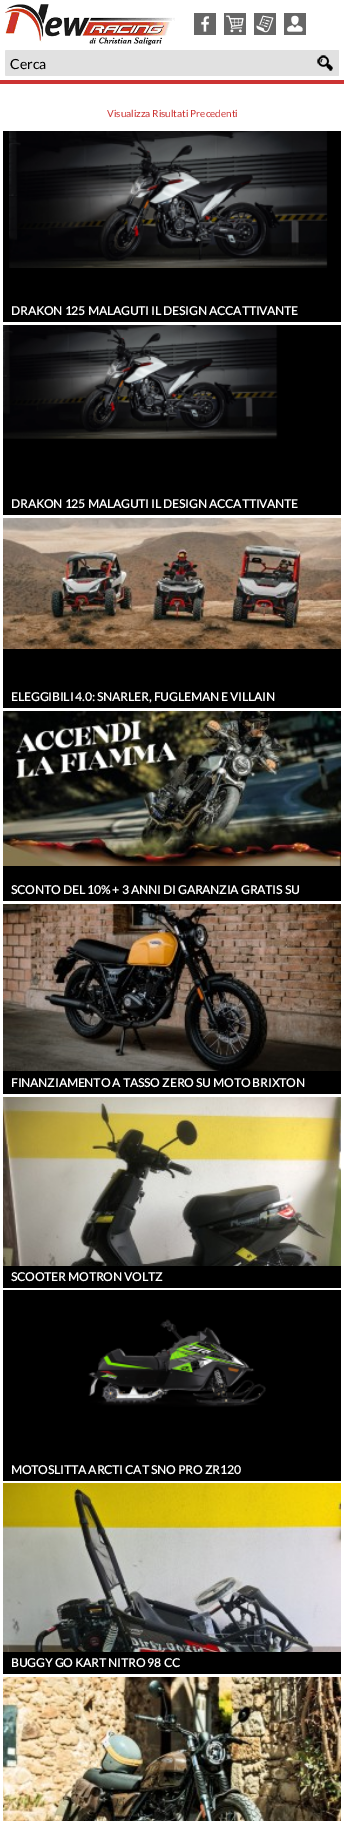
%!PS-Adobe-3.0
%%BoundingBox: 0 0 344 1821
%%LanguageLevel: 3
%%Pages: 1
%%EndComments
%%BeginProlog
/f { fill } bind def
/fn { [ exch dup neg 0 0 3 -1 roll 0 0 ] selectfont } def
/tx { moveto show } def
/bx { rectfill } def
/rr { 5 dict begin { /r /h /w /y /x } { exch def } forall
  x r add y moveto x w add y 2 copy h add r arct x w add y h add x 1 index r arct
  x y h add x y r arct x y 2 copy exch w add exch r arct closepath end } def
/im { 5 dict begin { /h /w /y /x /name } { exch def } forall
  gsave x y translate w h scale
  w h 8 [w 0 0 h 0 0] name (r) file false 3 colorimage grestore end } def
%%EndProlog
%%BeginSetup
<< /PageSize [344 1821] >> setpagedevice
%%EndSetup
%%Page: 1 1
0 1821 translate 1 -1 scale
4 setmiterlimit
1 setgray
0 0 344 1821 bx
0.8 0.2 0.2 setrgbcolor
0 80 344 4 bx
(image0.raw) 5 4 170 42 im
(image1.raw) 194 13 22 22 im
(image2.raw) 224 13 22 22 im
(image3.raw) 254 13 22 22 im
(image4.raw) 284 13 22 22 im
0.941 setgray
5 50 334 26 bx
0.882 setgray
5 50 334 26 2 rr f
/Lato-Regular 14 fn
0 setgray
(Cerca) 10 69 tx
0.882 setgray
313 50 26 26 2 rr f
(image5.raw) 317 55 16 16 im
/Lato-Regular 9.9 fn
0.8 0.2 0.2 setrgbcolor
(Visualizza Risultati Precedenti) 107 117 tx
0 setgray
3 131 338 191 bx
(image6.raw) 9 131 319 137 im
/Lato-Bold 11.9 fn
1 setgray
(DRAKON 125 MALAGUTI IL DESIGN ACCATTIVANTE) 11 315 tx
0 setgray
3 325 338 190 bx
(image7.raw) 3 325 275 114 im
1 setgray
(DRAKON 125 MALAGUTI IL DESIGN ACCATTIVANTE) 11 508 tx
0 setgray
3 649 338 59 bx
(image8.raw) 3 518 338 131 im
1 setgray
(ELEGGIBILI 4.0: SNARLER, FUGLEMAN E VILLAIN) 11 701 tx
0 setgray
3 866 338 35 bx
(image9.raw) 3 711 338 155 im
1 setgray
(SCONTO DEL 10% + 3 ANNI DI GARANZIA GRATIS SU) 11 894 tx
0 setgray
3 1071 338 23 bx
(image10.raw) 3 904 338 167 im
1 setgray
(FINANZIAMENTO A TASSO ZERO SU MOTO BRIXTON) 11 1087 tx
(image11.raw) 3 1097 338 169 im
0 setgray
3 1266 338 22 bx
1 setgray
(SCOOTER MOTRON VOLTZ) 11 1281 tx
0 setgray
3 1290 338 191 bx
(image12.raw) 88 1319 178 88 im
1 setgray
(MOTOSLITTA ARCTI CAT SNO PRO ZR120) 11 1474 tx
(image13.raw) 3 1483 338 169 im
0 setgray
3 1652 338 22 bx
1 setgray
(BUGGY GO KART NITRO 98 CC) 11 1667 tx
(image14.raw) 3 1677 338 144 im
showpage
%%EOF
